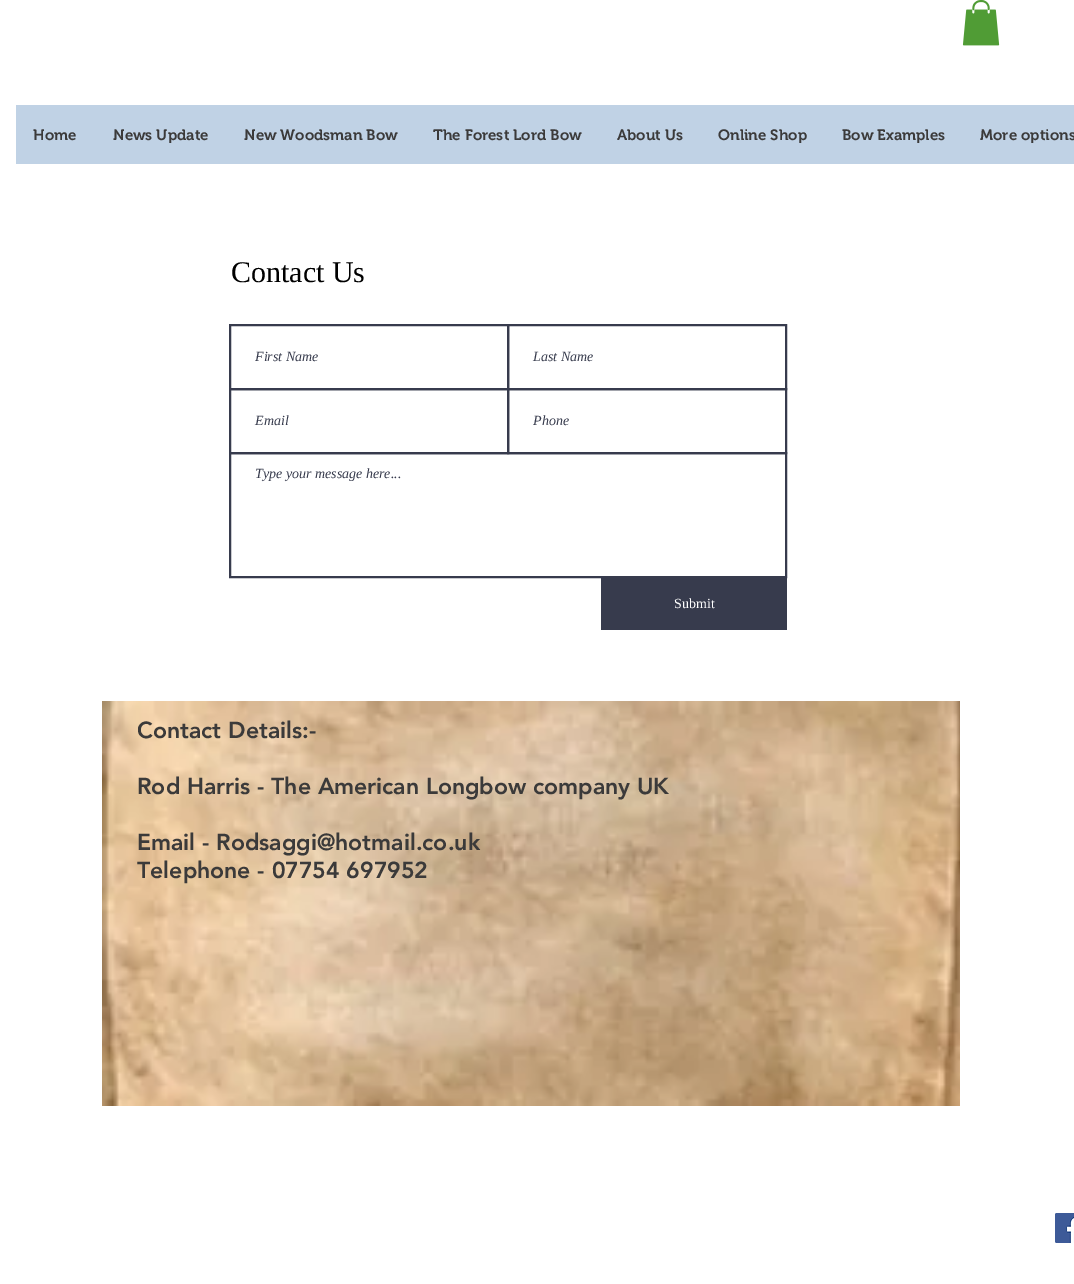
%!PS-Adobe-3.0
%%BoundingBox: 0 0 1074 1284
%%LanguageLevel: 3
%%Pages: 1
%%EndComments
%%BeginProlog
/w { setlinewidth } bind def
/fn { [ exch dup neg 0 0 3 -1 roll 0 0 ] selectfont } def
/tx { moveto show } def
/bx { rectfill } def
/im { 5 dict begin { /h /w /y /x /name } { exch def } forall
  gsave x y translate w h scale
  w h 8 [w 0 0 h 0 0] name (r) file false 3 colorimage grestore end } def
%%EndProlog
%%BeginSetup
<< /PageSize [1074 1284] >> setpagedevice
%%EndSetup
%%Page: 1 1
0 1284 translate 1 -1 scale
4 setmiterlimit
1 setgray
0 0 1074 1284 bx
(image0.raw) 962 0 38 46 im
0.753 0.824 0.898 setrgbcolor
16 105 1058 59 bx
/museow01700-SemiBold 15 fn
0.231 0.227 0.227 setrgbcolor
(Home) 33 140 tx
(News Update) 113 140 tx
(New Woodsman Bow) 244 140 tx
(The Forest Lord Bow) 433 140 tx
(About Us) 617 140 tx
(Online Shop) 718 140 tx
(Bow Examples) 842 140 tx
(More options) 980 140 tx
/LiberationSerif-Regular 30 fn
0 setgray
(Contact Us) 231 282 tx
0.216 0.231 0.302 setrgbcolor
2 w
230 325 278 64 rectstroke
/LiberationSerif-Italic 14 fn
(First Name) 255 361 tx
508 325 278 64 rectstroke
(Last Name) 533 361 tx
230 389 278 64 rectstroke
(Email) 255 425 tx
508 389 278 64 rectstroke
(Phone) 533 425 tx
230 453 556 124 rectstroke
(Type your message here...) 255 478 tx
601 578 186 52 bx
/LiberationSerif-Regular 14 fn
1 setgray
(Submit) 674 608 tx
(image1.raw) 102 701 858 405 im
/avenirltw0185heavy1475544-Black 23 fn
0.231 0.227 0.227 setrgbcolor
(Contact Details:-) 137 738 tx
(Rod Harris - The American Longbow company UK) 137 794 tx
(Email - Rodsaggi@hotmail.co.uk) 137 850 tx
(Telephone - 07754 697952) 137 878 tx
(image2.raw) 1055 1213 19 30 im
showpage
%%EOF
